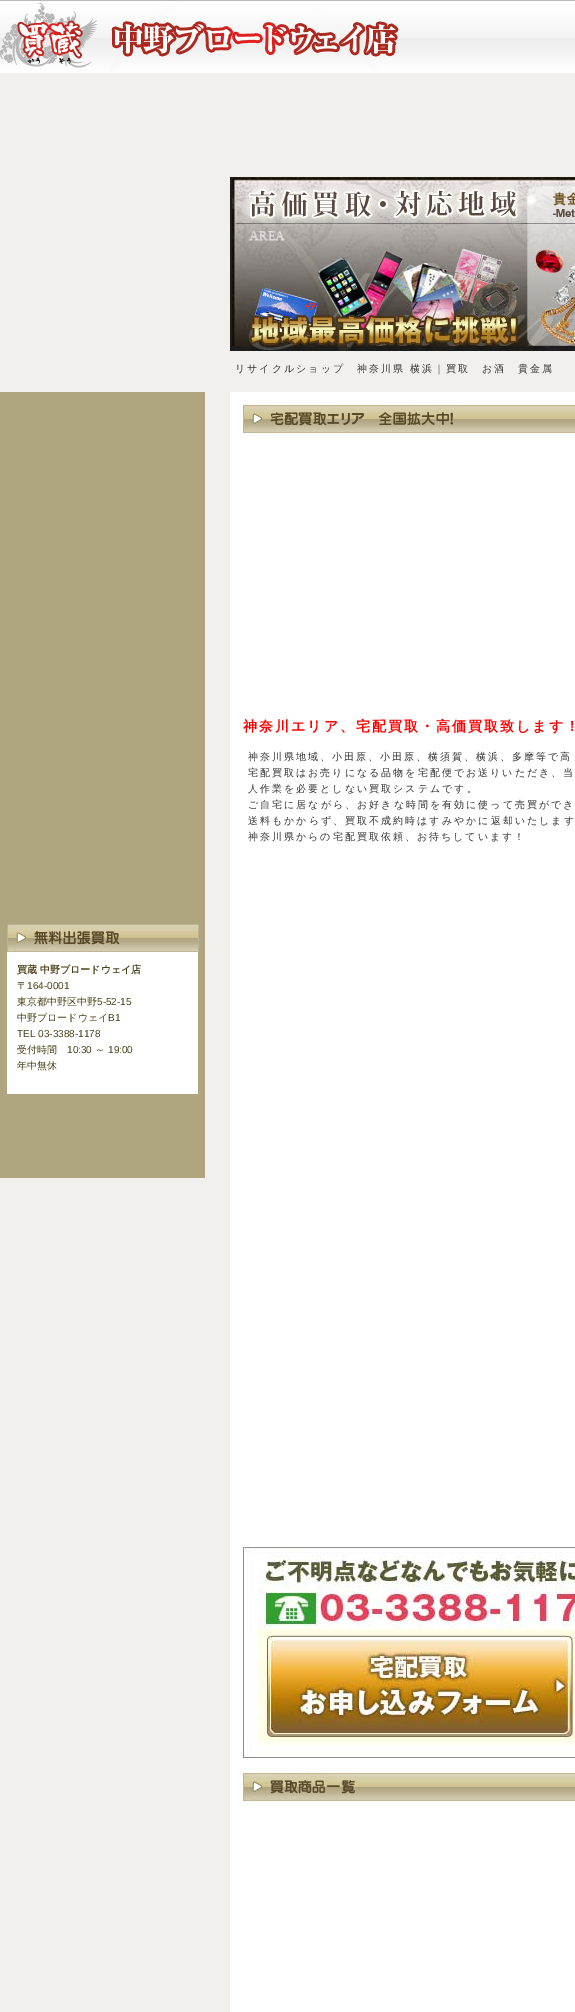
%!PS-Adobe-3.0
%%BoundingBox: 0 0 575 2012
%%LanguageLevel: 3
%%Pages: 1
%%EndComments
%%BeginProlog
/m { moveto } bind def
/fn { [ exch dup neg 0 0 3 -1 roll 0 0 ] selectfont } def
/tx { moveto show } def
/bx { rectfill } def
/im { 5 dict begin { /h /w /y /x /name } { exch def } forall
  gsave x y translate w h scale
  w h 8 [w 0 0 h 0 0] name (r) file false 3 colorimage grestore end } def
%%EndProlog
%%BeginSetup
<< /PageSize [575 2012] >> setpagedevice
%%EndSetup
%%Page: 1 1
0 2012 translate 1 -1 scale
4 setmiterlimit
0.945 0.941 0.925 setrgbcolor
0 0 575 2012 bx
(image0.raw) 0 0 575 73 im
(image1.raw) 230 177 345 174 im
/WenQuanYiZenHei-Medium 10 fn
0.2 setgray
235 372 m 2 0 (リサイクルショップ　神奈川県 横浜｜買取　お酒　貴金属) ashow
1 setgray
230 392 345 1620 bx
(image2.raw) 243 405 332 28 im
/WenQuanYiZenHei-Bold 14 fn
1 0 0 setrgbcolor
243 731 m 2 0 (神奈川エリア、宅配買取・高価買取致します！) ashow
/WenQuanYiZenHei-Medium 10 fn
0.2 setgray
248 760 m 2 0 (神奈川県地域、小田原、小田原、横須賀、横浜、多摩等で高) ashow
248 776 m 2 0 (宅配買取はお売りになる品物を宅配便でお送りいただき、当) ashow
248 792 m 2 0 (人作業を必要としない買取システムです。) ashow
248 808 m 2 0 (ご自宅に居ながら、お好きな時間を有効に使って売買ができ) ashow
248 824 m 2 0 (送料もかからず、買取不成約時はすみやかに返却いたします) ashow
248 840 m 2 0 (神奈川県からの宅配買取依頼、お待ちしています！) ashow
(image3.raw) 243 1547 332 211 im
(image4.raw) 243 1773 332 28 im
0.686 0.647 0.502 setrgbcolor
0 392 205 786 bx
(image5.raw) 7 924 192 28 im
1 setgray
7 952 191 142 bx
/WenQuanYiZenHei-Bold 10 fn
0.294 0.251 0.098 setrgbcolor
(買蔵 中野ブロードウェイ店) 17 973 tx
/WenQuanYiZenHei-Medium 10 fn
(〒) 17 989 tx
/LiberationSans-Regular 10 fn
(164-0001) 27 989 tx
/WenQuanYiZenHei-Medium 10 fn
(東京都中野区中野) 17 1005 tx
/LiberationSans-Regular 10 fn
(5-52-15) 97 1005 tx
/WenQuanYiZenHei-Medium 10 fn
(中野ブロードウェイ) 17 1021 tx
/LiberationSans-Regular 10 fn
(B1) 108 1021 tx
(TEL 03-3388-1178) 17 1037 tx
/WenQuanYiZenHei-Medium 10 fn
(受付時間) 17 1053 tx
/LiberationSans-Regular 10 fn
(10:30) 67 1053 tx
/WenQuanYiZenHei-Medium 10 fn
(～) 95 1053 tx
/LiberationSans-Regular 10 fn
(19:00) 108 1053 tx
/WenQuanYiZenHei-Medium 10 fn
(年中無休) 17 1069 tx
showpage
%%EOF
